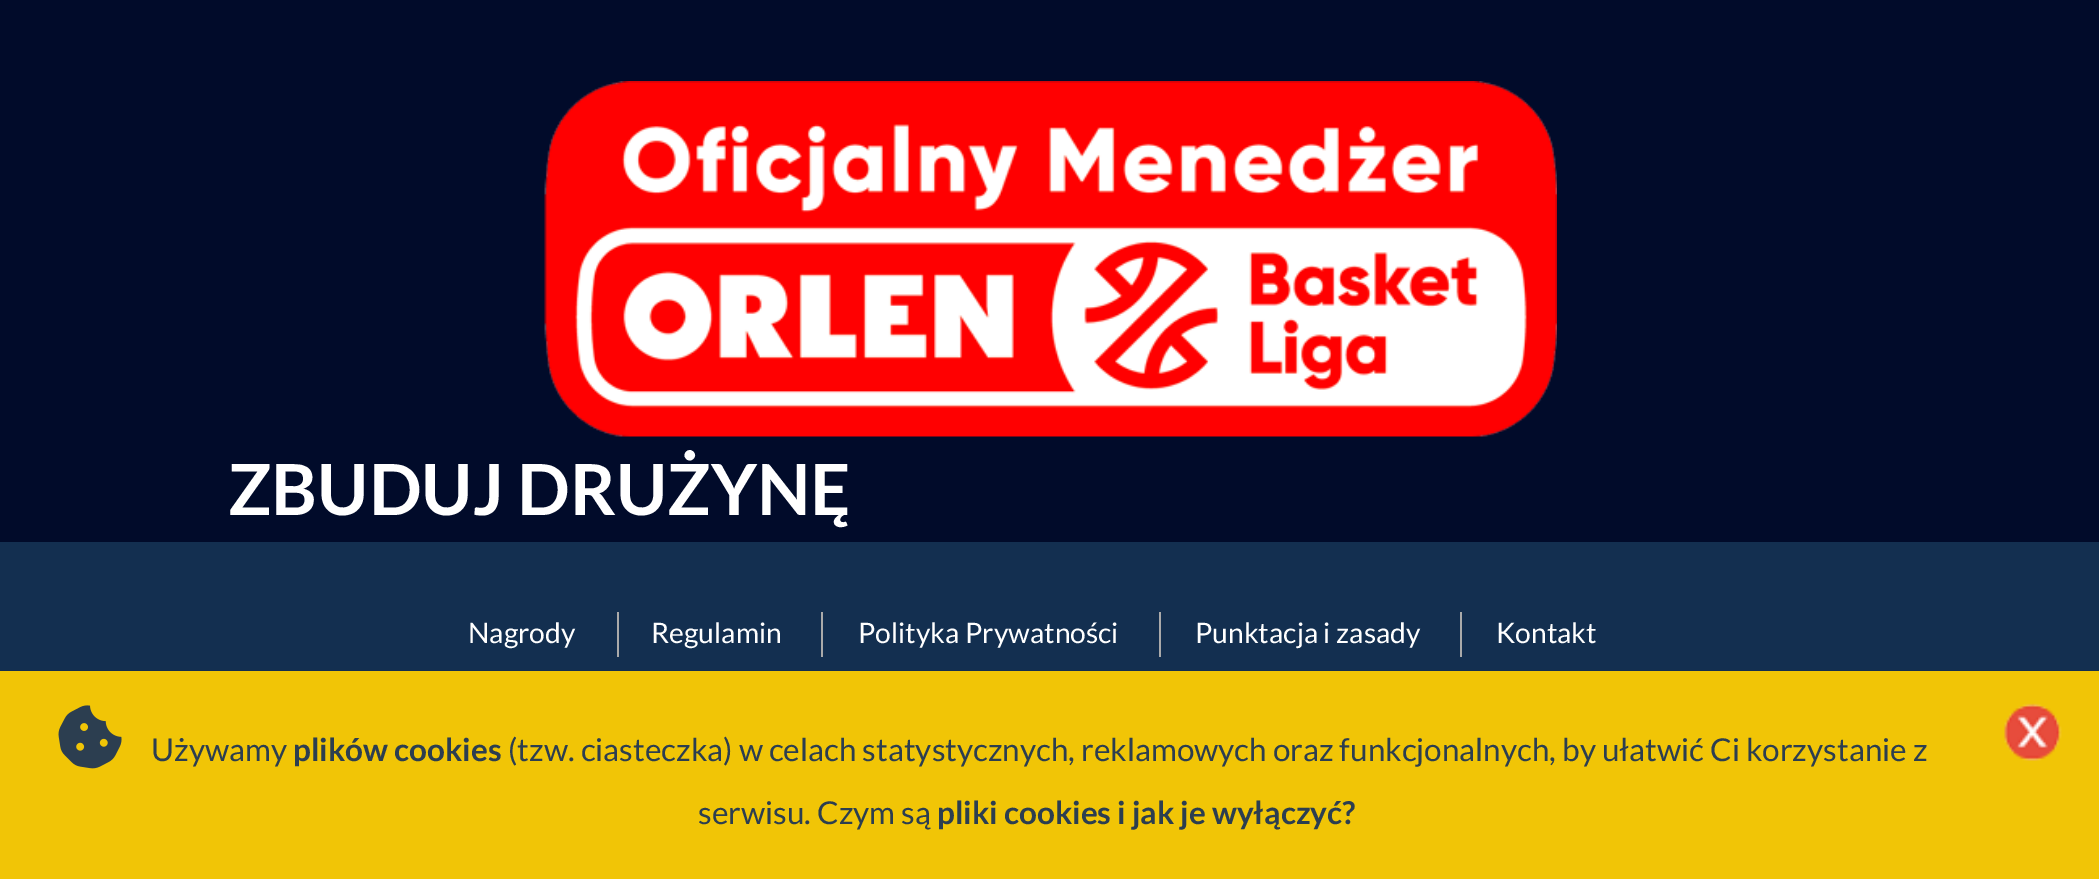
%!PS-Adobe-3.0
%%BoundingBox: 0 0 2099 879
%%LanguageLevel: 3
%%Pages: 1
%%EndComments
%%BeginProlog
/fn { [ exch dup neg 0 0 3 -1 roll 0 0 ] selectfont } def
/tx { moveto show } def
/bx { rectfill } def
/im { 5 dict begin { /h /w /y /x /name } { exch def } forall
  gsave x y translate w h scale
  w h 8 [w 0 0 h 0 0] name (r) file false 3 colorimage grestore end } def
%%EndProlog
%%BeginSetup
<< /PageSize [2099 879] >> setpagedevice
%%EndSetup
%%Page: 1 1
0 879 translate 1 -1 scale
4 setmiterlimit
0.004 0.043 0.165 setrgbcolor
0 0 2099 879 bx
(image0.raw) 544 81 1013 356 im
/Lato-Bold 70.5 fn
1 setgray
(ZBUDUJ DRUŻYNĘ) 228 515 tx
0.075 0.184 0.314 setrgbcolor
0 542 2099 129 bx
/Lato-Regular 28.25 fn
1 setgray
(Nagrody) 468 643 tx
0.667 setgray
617 612 2 45 bx
1 setgray
(Regulamin) 651 643 tx
0.667 setgray
821 612 2 45 bx
1 setgray
(Polityka Prywatności) 858 643 tx
0.667 setgray
1159 612 2 45 bx
1 setgray
(Punktacja i zasady) 1195 643 tx
0.667 setgray
1460 612 2 45 bx
1 setgray
(Kontakt) 1496 643 tx
0.945 0.773 0.024 setrgbcolor
0 671 2099 208 bx
(image1.raw) 58 705 64 64 im
/Lato-Regular 31.5 fn
0.173 0.243 0.314 setrgbcolor
(Używamy) 151 761 tx
/Lato-Bold 31.5 fn
(plików cookies) 293 761 tx
/Lato-Regular 31.5 fn
(\(tzw. ciasteczka\) w celach statystycznych, reklamowych oraz funkcjonalnych, by ułatwić Ci korzystanie z) 508 761 tx
(image2.raw) 2004 703 58 58 im
(serwisu. Czym są) 698 824 tx
/Lato-Bold 31.5 fn
(pliki cookies i jak je wyłączyć?) 937 824 tx
showpage
%%EOF
